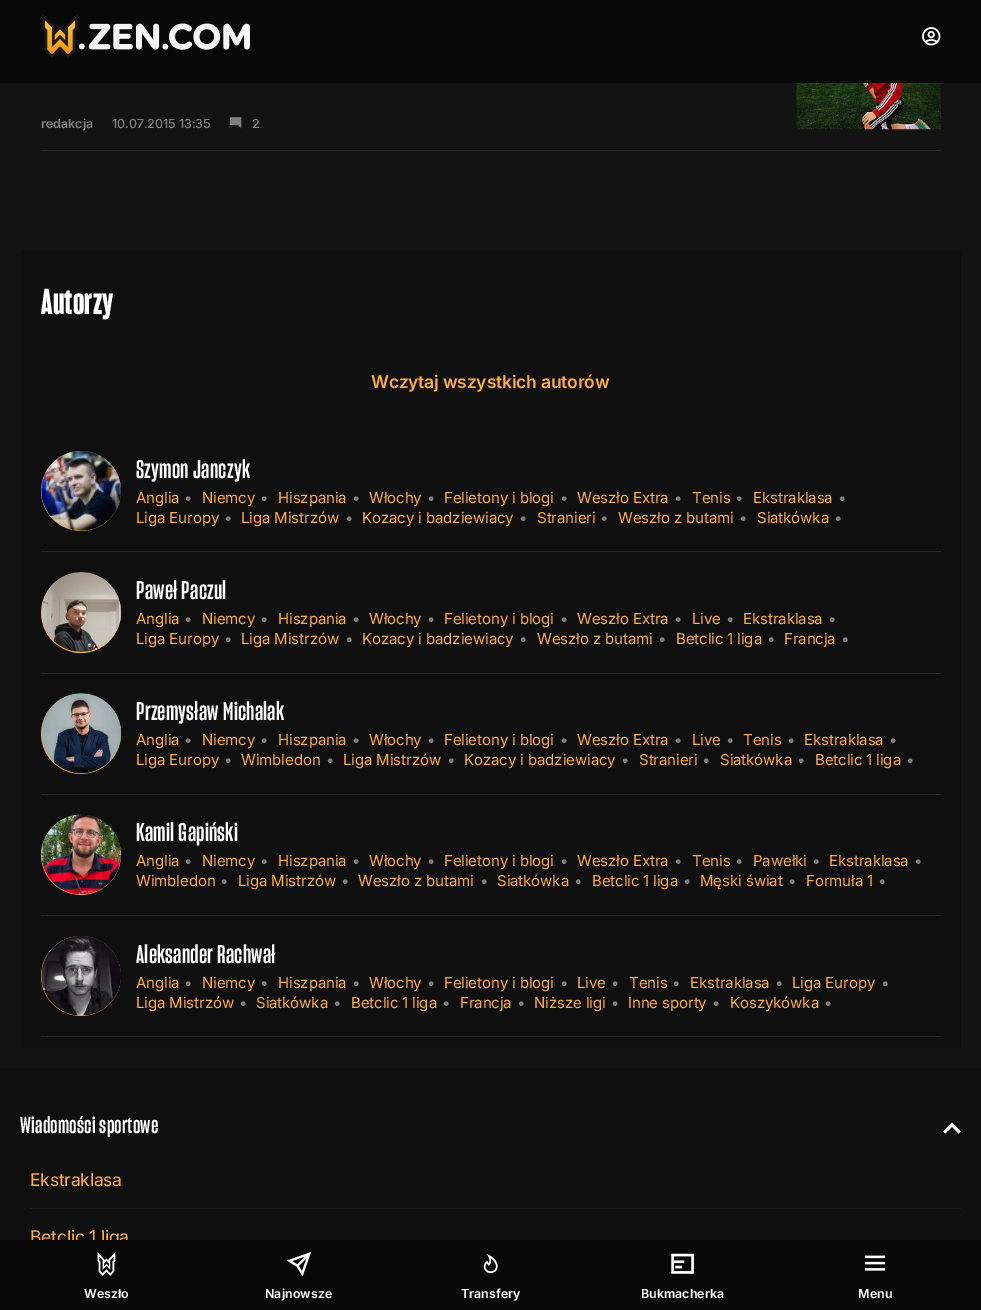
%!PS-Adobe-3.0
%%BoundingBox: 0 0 981 1310
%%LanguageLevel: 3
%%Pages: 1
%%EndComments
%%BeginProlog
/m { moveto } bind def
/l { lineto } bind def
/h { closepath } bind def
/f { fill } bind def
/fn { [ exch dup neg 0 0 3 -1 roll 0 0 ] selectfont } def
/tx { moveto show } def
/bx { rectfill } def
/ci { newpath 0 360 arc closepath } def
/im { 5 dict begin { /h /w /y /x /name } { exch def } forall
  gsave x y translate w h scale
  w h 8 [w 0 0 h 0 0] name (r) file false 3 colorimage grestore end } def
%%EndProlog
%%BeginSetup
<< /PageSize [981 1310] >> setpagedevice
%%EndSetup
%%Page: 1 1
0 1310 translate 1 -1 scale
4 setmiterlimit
0.075 setgray
0 0 981 1310 bx
0.031 setgray
0 0 981 83 bx
(image0.raw) 42 14 36 44 im
(image1.raw) 79 23 171 27 im
(image2.raw) 922 27 19 19 im
0.161 setgray
41 150 900 1 bx
/Inter-SemiBold 12.5 fn
0.502 setgray
(redakcja) 41 128 tx
/Inter-Medium 12.5 fn
112 128 m -0.1 0 (10.07.2015 13:35) ashow
(image3.raw) 230 117 12 12 im
252 128 m -0.1 0 (2) ashow
(image4.raw) 796 83 146 47 im
0.059 setgray
21 251 940 797 bx
/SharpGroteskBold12-Bold 35 fn
1 setgray
41 314 m 0.25 0 (Autorzy) ashow
/Inter-SemiBold 17.5 fn
1 0.686 0.216 setrgbcolor
371 388 m -0.2 0 (Wczytaj wszystkich autorów) ashow
0.161 setgray
41 551 900 1 bx
1 0.686 0.216 setrgbcolor
81 491 40 ci f
(image5.raw) 41 450 80 81 im
/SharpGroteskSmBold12-Bold 25 fn
1 setgray
136 478 m 0.25 0 (Szymon Janczyk) ashow
/Inter-Regular 15 fn
1 0.686 0.216 setrgbcolor
136 503 m -0.1 0 (Anglia) ashow
0.502 setgray
184 503 m -0.1 0 (•) ashow
1 0.686 0.216 setrgbcolor
202 503 m -0.1 0 (Niemcy) ashow
0.502 setgray
260 503 m -0.1 0 (•) ashow
1 0.686 0.216 setrgbcolor
278 503 m -0.1 0 (Hiszpania) ashow
0.502 setgray
352 503 m -0.1 0 (•) ashow
1 0.686 0.216 setrgbcolor
369 503 m -0.1 0 (Włochy) ashow
0.502 setgray
427 503 m -0.1 0 (•) ashow
1 0.686 0.216 setrgbcolor
444 503 m -0.1 0 (Felietony i blogi) ashow
0.502 setgray
560 503 m -0.1 0 (•) ashow
1 0.686 0.216 setrgbcolor
577 503 m -0.1 0 (Weszło Extra) ashow
0.502 setgray
674 503 m -0.1 0 (•) ashow
1 0.686 0.216 setrgbcolor
692 503 m -0.1 0 (Tenis) ashow
0.502 setgray
735 503 m -0.1 0 (•) ashow
1 0.686 0.216 setrgbcolor
753 503 m -0.1 0 (Ekstraklasa) ashow
0.502 setgray
838 503 m -0.1 0 (•) ashow
1 0.686 0.216 setrgbcolor
136 523 m -0.1 0 (Liga Europy) ashow
0.502 setgray
224 523 m -0.1 0 (•) ashow
1 0.686 0.216 setrgbcolor
241 523 m -0.1 0 (Liga Mistrzów) ashow
0.502 setgray
345 523 m -0.1 0 (•) ashow
1 0.686 0.216 setrgbcolor
362 523 m -0.1 0 (Kozacy i badziewiacy) ashow
0.502 setgray
519 523 m -0.1 0 (•) ashow
1 0.686 0.216 setrgbcolor
537 523 m -0.1 0 (Stranieri) ashow
0.502 setgray
600 523 m -0.1 0 (•) ashow
1 0.686 0.216 setrgbcolor
618 523 m -0.1 0 (Weszło z butami) ashow
0.502 setgray
739 523 m -0.1 0 (•) ashow
1 0.686 0.216 setrgbcolor
757 523 m -0.1 0 (Siatkówka) ashow
0.502 setgray
834 523 m -0.1 0 (•) ashow
0.161 setgray
41 673 900 1 bx
1 0.686 0.216 setrgbcolor
81 613 40 ci f
(image6.raw) 41 572 81 80 im
/SharpGroteskSmBold12-Bold 25 fn
1 setgray
136 599 m 0.25 0 (Paweł Paczul) ashow
/Inter-Regular 15 fn
1 0.686 0.216 setrgbcolor
136 624 m -0.1 0 (Anglia) ashow
0.502 setgray
184 624 m -0.1 0 (•) ashow
1 0.686 0.216 setrgbcolor
202 624 m -0.1 0 (Niemcy) ashow
0.502 setgray
260 624 m -0.1 0 (•) ashow
1 0.686 0.216 setrgbcolor
278 624 m -0.1 0 (Hiszpania) ashow
0.502 setgray
352 624 m -0.1 0 (•) ashow
1 0.686 0.216 setrgbcolor
369 624 m -0.1 0 (Włochy) ashow
0.502 setgray
427 624 m -0.1 0 (•) ashow
1 0.686 0.216 setrgbcolor
444 624 m -0.1 0 (Felietony i blogi) ashow
0.502 setgray
560 624 m -0.1 0 (•) ashow
1 0.686 0.216 setrgbcolor
577 624 m -0.1 0 (Weszło Extra) ashow
0.502 setgray
674 624 m -0.1 0 (•) ashow
1 0.686 0.216 setrgbcolor
692 624 m -0.1 0 (Live) ashow
0.502 setgray
726 624 m -0.1 0 (•) ashow
1 0.686 0.216 setrgbcolor
743 624 m -0.1 0 (Ekstraklasa) ashow
0.502 setgray
828 624 m -0.1 0 (•) ashow
1 0.686 0.216 setrgbcolor
136 644 m -0.1 0 (Liga Europy) ashow
0.502 setgray
224 644 m -0.1 0 (•) ashow
1 0.686 0.216 setrgbcolor
241 644 m -0.1 0 (Liga Mistrzów) ashow
0.502 setgray
345 644 m -0.1 0 (•) ashow
1 0.686 0.216 setrgbcolor
362 644 m -0.1 0 (Kozacy i badziewiacy) ashow
0.502 setgray
519 644 m -0.1 0 (•) ashow
1 0.686 0.216 setrgbcolor
537 644 m -0.1 0 (Weszło z butami) ashow
0.502 setgray
658 644 m -0.1 0 (•) ashow
1 0.686 0.216 setrgbcolor
676 644 m -0.1 0 (Betclic 1 liga) ashow
0.502 setgray
767 644 m -0.1 0 (•) ashow
1 0.686 0.216 setrgbcolor
784 644 m -0.1 0 (Francja) ashow
0.502 setgray
841 644 m -0.1 0 (•) ashow
0.161 setgray
41 794 900 1 bx
1 0.686 0.216 setrgbcolor
81 734 40 ci f
(image7.raw) 41 693 81 81 im
/SharpGroteskSmBold12-Bold 25 fn
1 setgray
136 720 m 0.25 0 (Przemysław Michalak) ashow
/Inter-Regular 15 fn
1 0.686 0.216 setrgbcolor
136 745 m -0.1 0 (Anglia) ashow
0.502 setgray
184 745 m -0.1 0 (•) ashow
1 0.686 0.216 setrgbcolor
202 745 m -0.1 0 (Niemcy) ashow
0.502 setgray
260 745 m -0.1 0 (•) ashow
1 0.686 0.216 setrgbcolor
278 745 m -0.1 0 (Hiszpania) ashow
0.502 setgray
352 745 m -0.1 0 (•) ashow
1 0.686 0.216 setrgbcolor
369 745 m -0.1 0 (Włochy) ashow
0.502 setgray
427 745 m -0.1 0 (•) ashow
1 0.686 0.216 setrgbcolor
444 745 m -0.1 0 (Felietony i blogi) ashow
0.502 setgray
560 745 m -0.1 0 (•) ashow
1 0.686 0.216 setrgbcolor
577 745 m -0.1 0 (Weszło Extra) ashow
0.502 setgray
674 745 m -0.1 0 (•) ashow
1 0.686 0.216 setrgbcolor
692 745 m -0.1 0 (Live) ashow
0.502 setgray
726 745 m -0.1 0 (•) ashow
1 0.686 0.216 setrgbcolor
743 745 m -0.1 0 (Tenis) ashow
0.502 setgray
787 745 m -0.1 0 (•) ashow
1 0.686 0.216 setrgbcolor
804 745 m -0.1 0 (Ekstraklasa) ashow
0.502 setgray
889 745 m -0.1 0 (•) ashow
1 0.686 0.216 setrgbcolor
136 765 m -0.1 0 (Liga Europy) ashow
0.502 setgray
224 765 m -0.1 0 (•) ashow
1 0.686 0.216 setrgbcolor
241 765 m -0.1 0 (Wimbledon) ashow
0.502 setgray
326 765 m -0.1 0 (•) ashow
1 0.686 0.216 setrgbcolor
343 765 m -0.1 0 (Liga Mistrzów) ashow
0.502 setgray
447 765 m -0.1 0 (•) ashow
1 0.686 0.216 setrgbcolor
464 765 m -0.1 0 (Kozacy i badziewiacy) ashow
0.502 setgray
621 765 m -0.1 0 (•) ashow
1 0.686 0.216 setrgbcolor
639 765 m -0.1 0 (Stranieri) ashow
0.502 setgray
702 765 m -0.1 0 (•) ashow
1 0.686 0.216 setrgbcolor
720 765 m -0.1 0 (Siatkówka) ashow
0.502 setgray
797 765 m -0.1 0 (•) ashow
1 0.686 0.216 setrgbcolor
815 765 m -0.1 0 (Betclic 1 liga) ashow
0.502 setgray
906 765 m -0.1 0 (•) ashow
0.161 setgray
41 915 900 1 bx
1 0.686 0.216 setrgbcolor
81 855 40 ci f
(image8.raw) 41 814 81 81 im
/SharpGroteskSmBold12-Bold 25 fn
1 setgray
136 841 m 0.25 0 (Kamil Gapiński) ashow
/Inter-Regular 15 fn
1 0.686 0.216 setrgbcolor
136 866 m -0.1 0 (Anglia) ashow
0.502 setgray
184 866 m -0.1 0 (•) ashow
1 0.686 0.216 setrgbcolor
202 866 m -0.1 0 (Niemcy) ashow
0.502 setgray
260 866 m -0.1 0 (•) ashow
1 0.686 0.216 setrgbcolor
278 866 m -0.1 0 (Hiszpania) ashow
0.502 setgray
352 866 m -0.1 0 (•) ashow
1 0.686 0.216 setrgbcolor
369 866 m -0.1 0 (Włochy) ashow
0.502 setgray
427 866 m -0.1 0 (•) ashow
1 0.686 0.216 setrgbcolor
444 866 m -0.1 0 (Felietony i blogi) ashow
0.502 setgray
560 866 m -0.1 0 (•) ashow
1 0.686 0.216 setrgbcolor
577 866 m -0.1 0 (Weszło Extra) ashow
0.502 setgray
674 866 m -0.1 0 (•) ashow
1 0.686 0.216 setrgbcolor
692 866 m -0.1 0 (Tenis) ashow
0.502 setgray
735 866 m -0.1 0 (•) ashow
1 0.686 0.216 setrgbcolor
753 866 m -0.1 0 (Pawełki) ashow
0.502 setgray
812 866 m -0.1 0 (•) ashow
1 0.686 0.216 setrgbcolor
829 866 m -0.1 0 (Ekstraklasa) ashow
0.502 setgray
914 866 m -0.1 0 (•) ashow
1 0.686 0.216 setrgbcolor
136 886 m -0.1 0 (Wimbledon) ashow
0.502 setgray
220 886 m -0.1 0 (•) ashow
1 0.686 0.216 setrgbcolor
238 886 m -0.1 0 (Liga Mistrzów) ashow
0.502 setgray
341 886 m -0.1 0 (•) ashow
1 0.686 0.216 setrgbcolor
358 886 m -0.1 0 (Weszło z butami) ashow
0.502 setgray
480 886 m -0.1 0 (•) ashow
1 0.686 0.216 setrgbcolor
497 886 m -0.1 0 (Siatkówka) ashow
0.502 setgray
574 886 m -0.1 0 (•) ashow
1 0.686 0.216 setrgbcolor
592 886 m -0.1 0 (Betclic 1 liga) ashow
0.502 setgray
683 886 m -0.1 0 (•) ashow
1 0.686 0.216 setrgbcolor
700 886 m -0.1 0 (Męski świat) ashow
0.502 setgray
788 886 m -0.1 0 (•) ashow
1 0.686 0.216 setrgbcolor
806 886 m -0.1 0 (Formuła 1) ashow
0.502 setgray
878 886 m -0.1 0 (•) ashow
0.161 setgray
41 1036 900 1 bx
1 0.686 0.216 setrgbcolor
81 976 40 ci f
(image9.raw) 41 936 80 80 im
/SharpGroteskSmBold12-Bold 25 fn
1 setgray
136 963 m 0.25 0 (Aleksander Rachwał) ashow
/Inter-Regular 15 fn
1 0.686 0.216 setrgbcolor
136 988 m -0.1 0 (Anglia) ashow
0.502 setgray
184 988 m -0.1 0 (•) ashow
1 0.686 0.216 setrgbcolor
202 988 m -0.1 0 (Niemcy) ashow
0.502 setgray
260 988 m -0.1 0 (•) ashow
1 0.686 0.216 setrgbcolor
278 988 m -0.1 0 (Hiszpania) ashow
0.502 setgray
352 988 m -0.1 0 (•) ashow
1 0.686 0.216 setrgbcolor
369 988 m -0.1 0 (Włochy) ashow
0.502 setgray
427 988 m -0.1 0 (•) ashow
1 0.686 0.216 setrgbcolor
444 988 m -0.1 0 (Felietony i blogi) ashow
0.502 setgray
560 988 m -0.1 0 (•) ashow
1 0.686 0.216 setrgbcolor
577 988 m -0.1 0 (Live) ashow
0.502 setgray
611 988 m -0.1 0 (•) ashow
1 0.686 0.216 setrgbcolor
629 988 m -0.1 0 (Tenis) ashow
0.502 setgray
672 988 m -0.1 0 (•) ashow
1 0.686 0.216 setrgbcolor
690 988 m -0.1 0 (Ekstraklasa) ashow
0.502 setgray
775 988 m -0.1 0 (•) ashow
1 0.686 0.216 setrgbcolor
792 988 m -0.1 0 (Liga Europy) ashow
0.502 setgray
881 988 m -0.1 0 (•) ashow
1 0.686 0.216 setrgbcolor
136 1008 m -0.1 0 (Liga Mistrzów) ashow
0.502 setgray
239 1008 m -0.1 0 (•) ashow
1 0.686 0.216 setrgbcolor
256 1008 m -0.1 0 (Siatkówka) ashow
0.502 setgray
333 1008 m -0.1 0 (•) ashow
1 0.686 0.216 setrgbcolor
351 1008 m -0.1 0 (Betclic 1 liga) ashow
0.502 setgray
442 1008 m -0.1 0 (•) ashow
1 0.686 0.216 setrgbcolor
460 1008 m -0.1 0 (Francja) ashow
0.502 setgray
517 1008 m -0.1 0 (•) ashow
1 0.686 0.216 setrgbcolor
534 1008 m -0.1 0 (Niższe ligi) ashow
0.502 setgray
611 1008 m -0.1 0 (•) ashow
1 0.686 0.216 setrgbcolor
628 1008 m -0.1 0 (Inne sporty) ashow
0.502 setgray
712 1008 m -0.1 0 (•) ashow
1 0.686 0.216 setrgbcolor
730 1008 m -0.1 0 (Koszykówka) ashow
0.502 setgray
824 1008 m -0.1 0 (•) ashow
0.059 setgray
0 1068 981 172 bx
/SharpGroteskSmBold12-Bold 22.5 fn
1 setgray
20 1133 m 0.25 0 (Wiadomości sportowe) ashow
961 1131.5 m 958.5 1133.5 l 952 1127 l 945 1133.5 l 943 1131.5 l 952 1122.5 l h f
0.11 setgray
30 1208 931 1 bx
/Inter-Regular 17.5 fn
1 0.686 0.216 setrgbcolor
30 1186 m -0.2 0 (Ekstraklasa) ashow
30 1243 m -0.2 0 (Betclic 1 liga) ashow
0.031 setgray
0 1240 981 70 bx
(image10.raw) 97 1252 19 24 im
/Inter-SemiBold 12.5 fn
1 setgray
(Weszło) 84 1298 tx
(image11.raw) 286 1252 26 25 im
(Najnowsze) 265 1298 tx
(image12.raw) 483 1254 15 19 im
(Transfery) 461 1298 tx
(image13.raw) 671 1253 23 21 im
(Bukmacherka) 641 1298 tx
(image14.raw) 865 1255 20 16 im
(Menu) 858 1298 tx
showpage
%%EOF
